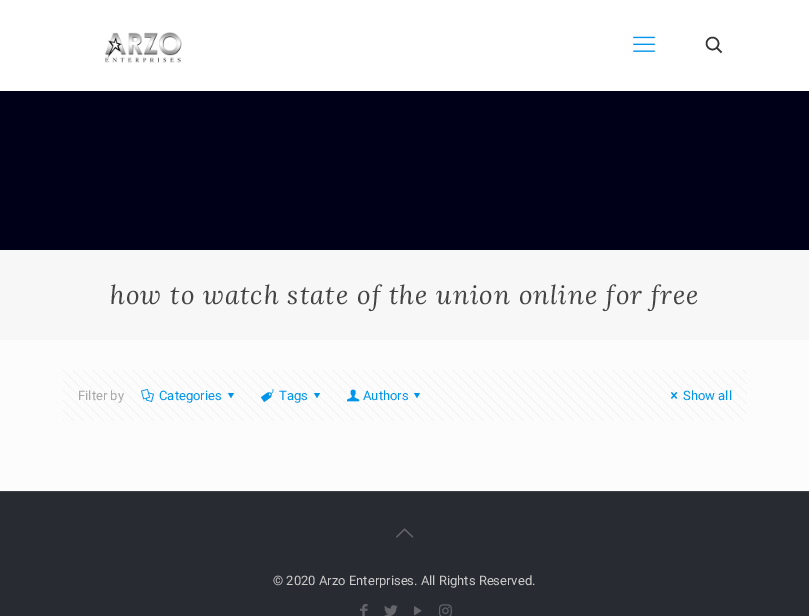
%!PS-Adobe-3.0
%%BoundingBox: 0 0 809 616
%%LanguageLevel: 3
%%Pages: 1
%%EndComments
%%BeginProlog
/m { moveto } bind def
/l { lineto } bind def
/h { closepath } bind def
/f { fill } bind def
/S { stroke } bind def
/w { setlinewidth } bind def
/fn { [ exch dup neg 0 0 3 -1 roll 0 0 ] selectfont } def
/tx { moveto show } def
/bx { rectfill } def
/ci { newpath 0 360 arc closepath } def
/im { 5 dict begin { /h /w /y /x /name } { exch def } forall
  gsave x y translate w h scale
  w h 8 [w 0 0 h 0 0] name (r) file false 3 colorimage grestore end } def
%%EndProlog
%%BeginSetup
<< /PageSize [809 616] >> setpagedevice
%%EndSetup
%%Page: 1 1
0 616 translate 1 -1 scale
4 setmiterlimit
0.988 setgray
0 0 809 616 bx
0 0.004 0.098 setrgbcolor
0 91 809 159 bx
1 setgray
0 0 809 91 bx
(image0.raw) 105 32 77 31 im
(image1.raw) 633 36 22 16 im
0.2 setgray
1.5 w
712.5 43.5 6 ci S
716.5 47.5 m 721.5 52.5 l S
0.969 setgray
0 250 809 90 bx
/Lora-Italic 26 fn
0.267 setgray
110 304 m 1 0 (how to watch state of the union online for free) ashow
(image2.raw) 63 370 684 51 im
/Roboto-Regular 13 fn
0.659 setgray
(Filter by) 78 400 tx
(image3.raw) 141 389 13 13 im
0 0.584 0.922 setrgbcolor
(Categories) 159 400 tx
234 393 m 231 398 l 228 393 l h f
(image4.raw) 261 389 13 13 im
(Tags) 279 400 tx
320 393 m 317 398 l 314 393 l h f
(image5.raw) 347 389 13 13 im
(Authors) 363 400 tx
420 393 m 417 398 l 414 393 l h f
(image6.raw) 671 392 7 7 im
(Show all) 683 400 tx
0.161 0.169 0.2 setrgbcolor
0 492 809 124 bx
0.243 0.251 0.278 setrgbcolor
0 491 809 1 bx
(image7.raw) 396 528 18 10 im
0.8 setgray
(© 2020 Arzo Enterprises. All Rights Reserved.) 273 585 tx
(image8.raw) 360 604 8 12 im
(image9.raw) 384 605 14 11 im
(image10.raw) 414 606 8 10 im
(image11.raw) 439 604 13 12 im
showpage
%%EOF
